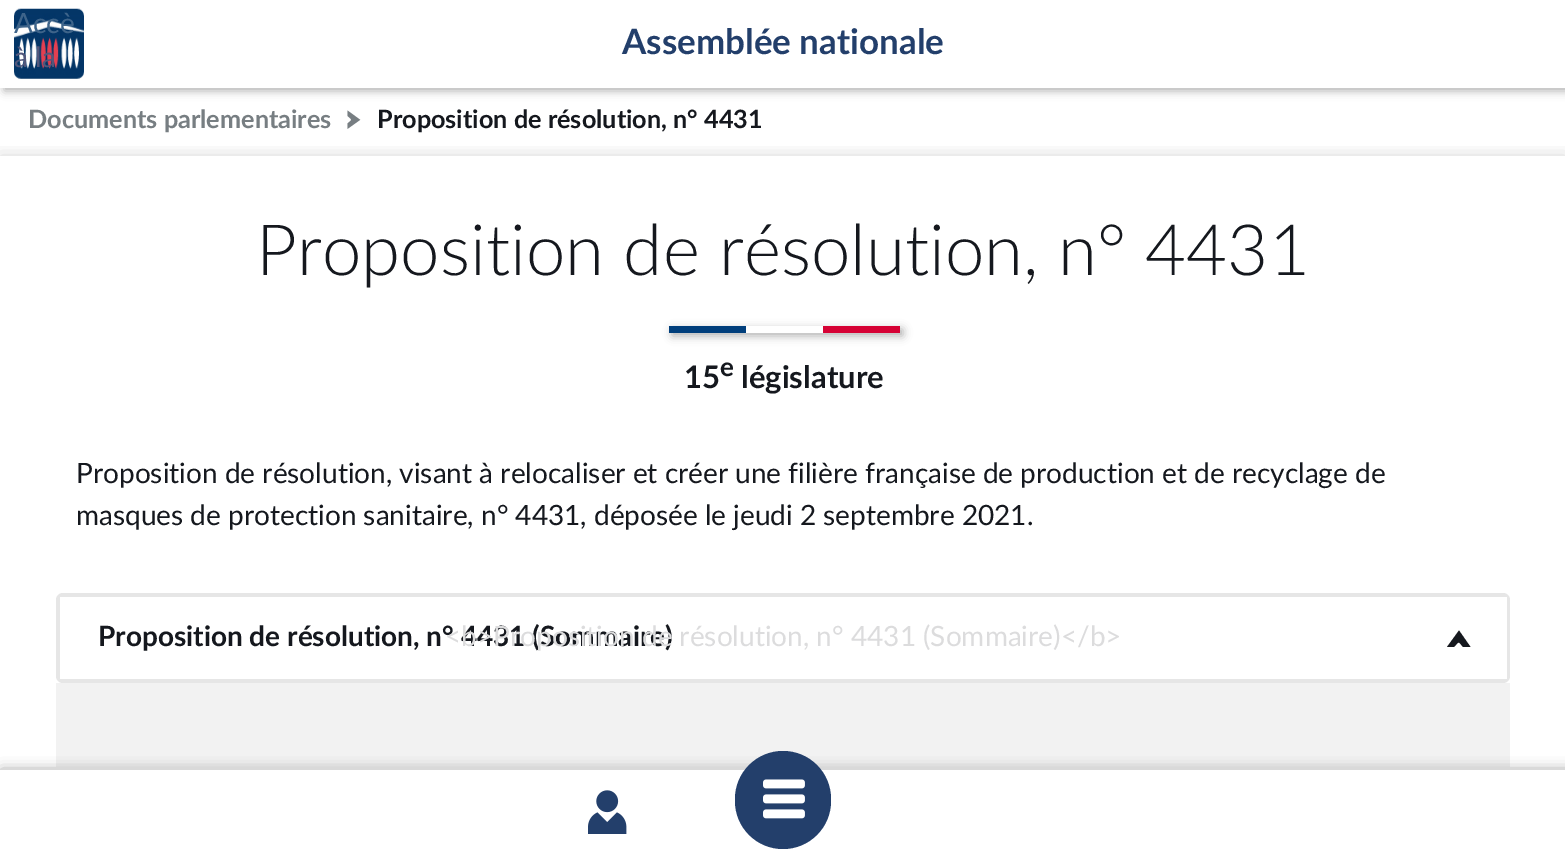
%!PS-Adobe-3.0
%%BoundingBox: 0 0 1565 856
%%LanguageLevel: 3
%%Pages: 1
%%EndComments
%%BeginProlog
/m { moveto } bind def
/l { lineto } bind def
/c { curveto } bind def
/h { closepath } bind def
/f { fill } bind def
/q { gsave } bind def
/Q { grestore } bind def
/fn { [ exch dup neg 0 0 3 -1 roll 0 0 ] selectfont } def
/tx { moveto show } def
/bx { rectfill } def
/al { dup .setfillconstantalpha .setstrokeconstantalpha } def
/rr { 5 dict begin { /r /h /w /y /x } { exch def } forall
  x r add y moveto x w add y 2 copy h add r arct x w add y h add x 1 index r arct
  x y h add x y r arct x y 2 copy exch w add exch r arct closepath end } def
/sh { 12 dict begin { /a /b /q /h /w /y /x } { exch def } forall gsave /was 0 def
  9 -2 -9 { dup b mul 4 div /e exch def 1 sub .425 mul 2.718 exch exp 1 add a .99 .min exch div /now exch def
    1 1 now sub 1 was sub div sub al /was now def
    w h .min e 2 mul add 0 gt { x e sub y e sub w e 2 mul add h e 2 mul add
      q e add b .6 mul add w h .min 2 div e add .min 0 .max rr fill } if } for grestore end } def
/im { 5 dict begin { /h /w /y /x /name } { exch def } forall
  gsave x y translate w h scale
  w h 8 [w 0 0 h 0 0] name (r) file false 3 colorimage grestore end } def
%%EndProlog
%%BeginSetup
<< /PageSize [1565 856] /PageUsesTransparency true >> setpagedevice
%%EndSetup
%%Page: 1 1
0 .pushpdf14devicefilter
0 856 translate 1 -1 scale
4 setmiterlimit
1 setgray
0 0 1565 856 bx
0 setgray
4 4 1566 87 0 4.5 0.3 sh
1 setgray
0 0 1565 88 bx
(image0.raw) 14 8 70 71 im
/Lato-Regular 28 fn
0.243 0.392 0.541 setrgbcolor
(Accè) 14 33 tx
0.322 0.341 0.482 setrgbcolor
(à la) 14 67 tx
/Lato-Bold 35 fn
0.137 0.247 0.42 setrgbcolor
(Assemblée nationale) 622 54 tx
/Lato-Bold 25.25 fn
0.467 0.494 0.51 setrgbcolor
(Documents parlementaires) 28 128 tx
(image1.raw) 347 110 14 19 im
0.082 0.094 0.118 setrgbcolor
(Proposition de résolution, n° 4431) 377 128 tx
q
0 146 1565 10 rectclip
0 setgray
0 156 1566 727 0 9 0.15 sh
Q
/Lato-Light 70.8 fn
(Proposition de résolution, n° 4431) 256 275 tx
0 setgray
672 329 231 7 0 4.5 0.3 sh
1 setgray
746 326 77 7 bx
0.004 0.247 0.486 setrgbcolor
669 326 77 7 bx
0.839 0.008 0.208 setrgbcolor
823 326 77 7 bx
/Lato-Bold 31 fn
0.082 0.094 0.118 setrgbcolor
(15) 684 388 tx
/Lato-Bold 26 fn
(e) 720 376 tx
/Lato-Bold 31 fn
(législature) 741 388 tx
/Lato-Regular 28 fn
(Proposition de résolution, visant à relocaliser et créer une filière française de production et de recyclage de) 76 483 tx
(masques de protection sanitaire, n° 4431, déposée le jeudi 2 septembre 2021.) 76 525 tx
0.902 setgray
56 593 1454 90 7 rr f
1 setgray
60 597 1447 82 bx
/Lato-Bold 28 fn
0.082 0.094 0.118 setrgbcolor
(Proposition de résolution, n° 4431 \(Sommaire\)) 98 646 tx
1447 647 m 1454 647 l 1459.5 641 1458 641 1463 647 c 1470.5 647 l 1459 630.5 l h f
/Lato-Regular 28 fn
0.863 0.863 0.867 setrgbcolor
(<b>Proposition de résolution, n° 4431 \(Sommaire\)</b>) 445 646 tx
0.949 setgray
56 683 1454 84 bx
0 setgray
2 772 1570 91 0 7 0.5 sh
1 setgray
0 770 1565 86 bx
(image2.raw) 588 790 39 44 im
0.137 0.247 0.42 setrgbcolor
735 751 96 98 48 rr f
(image3.raw) 763 779 42 40 im
.poppdf14devicefilter showpage
%%EOF
